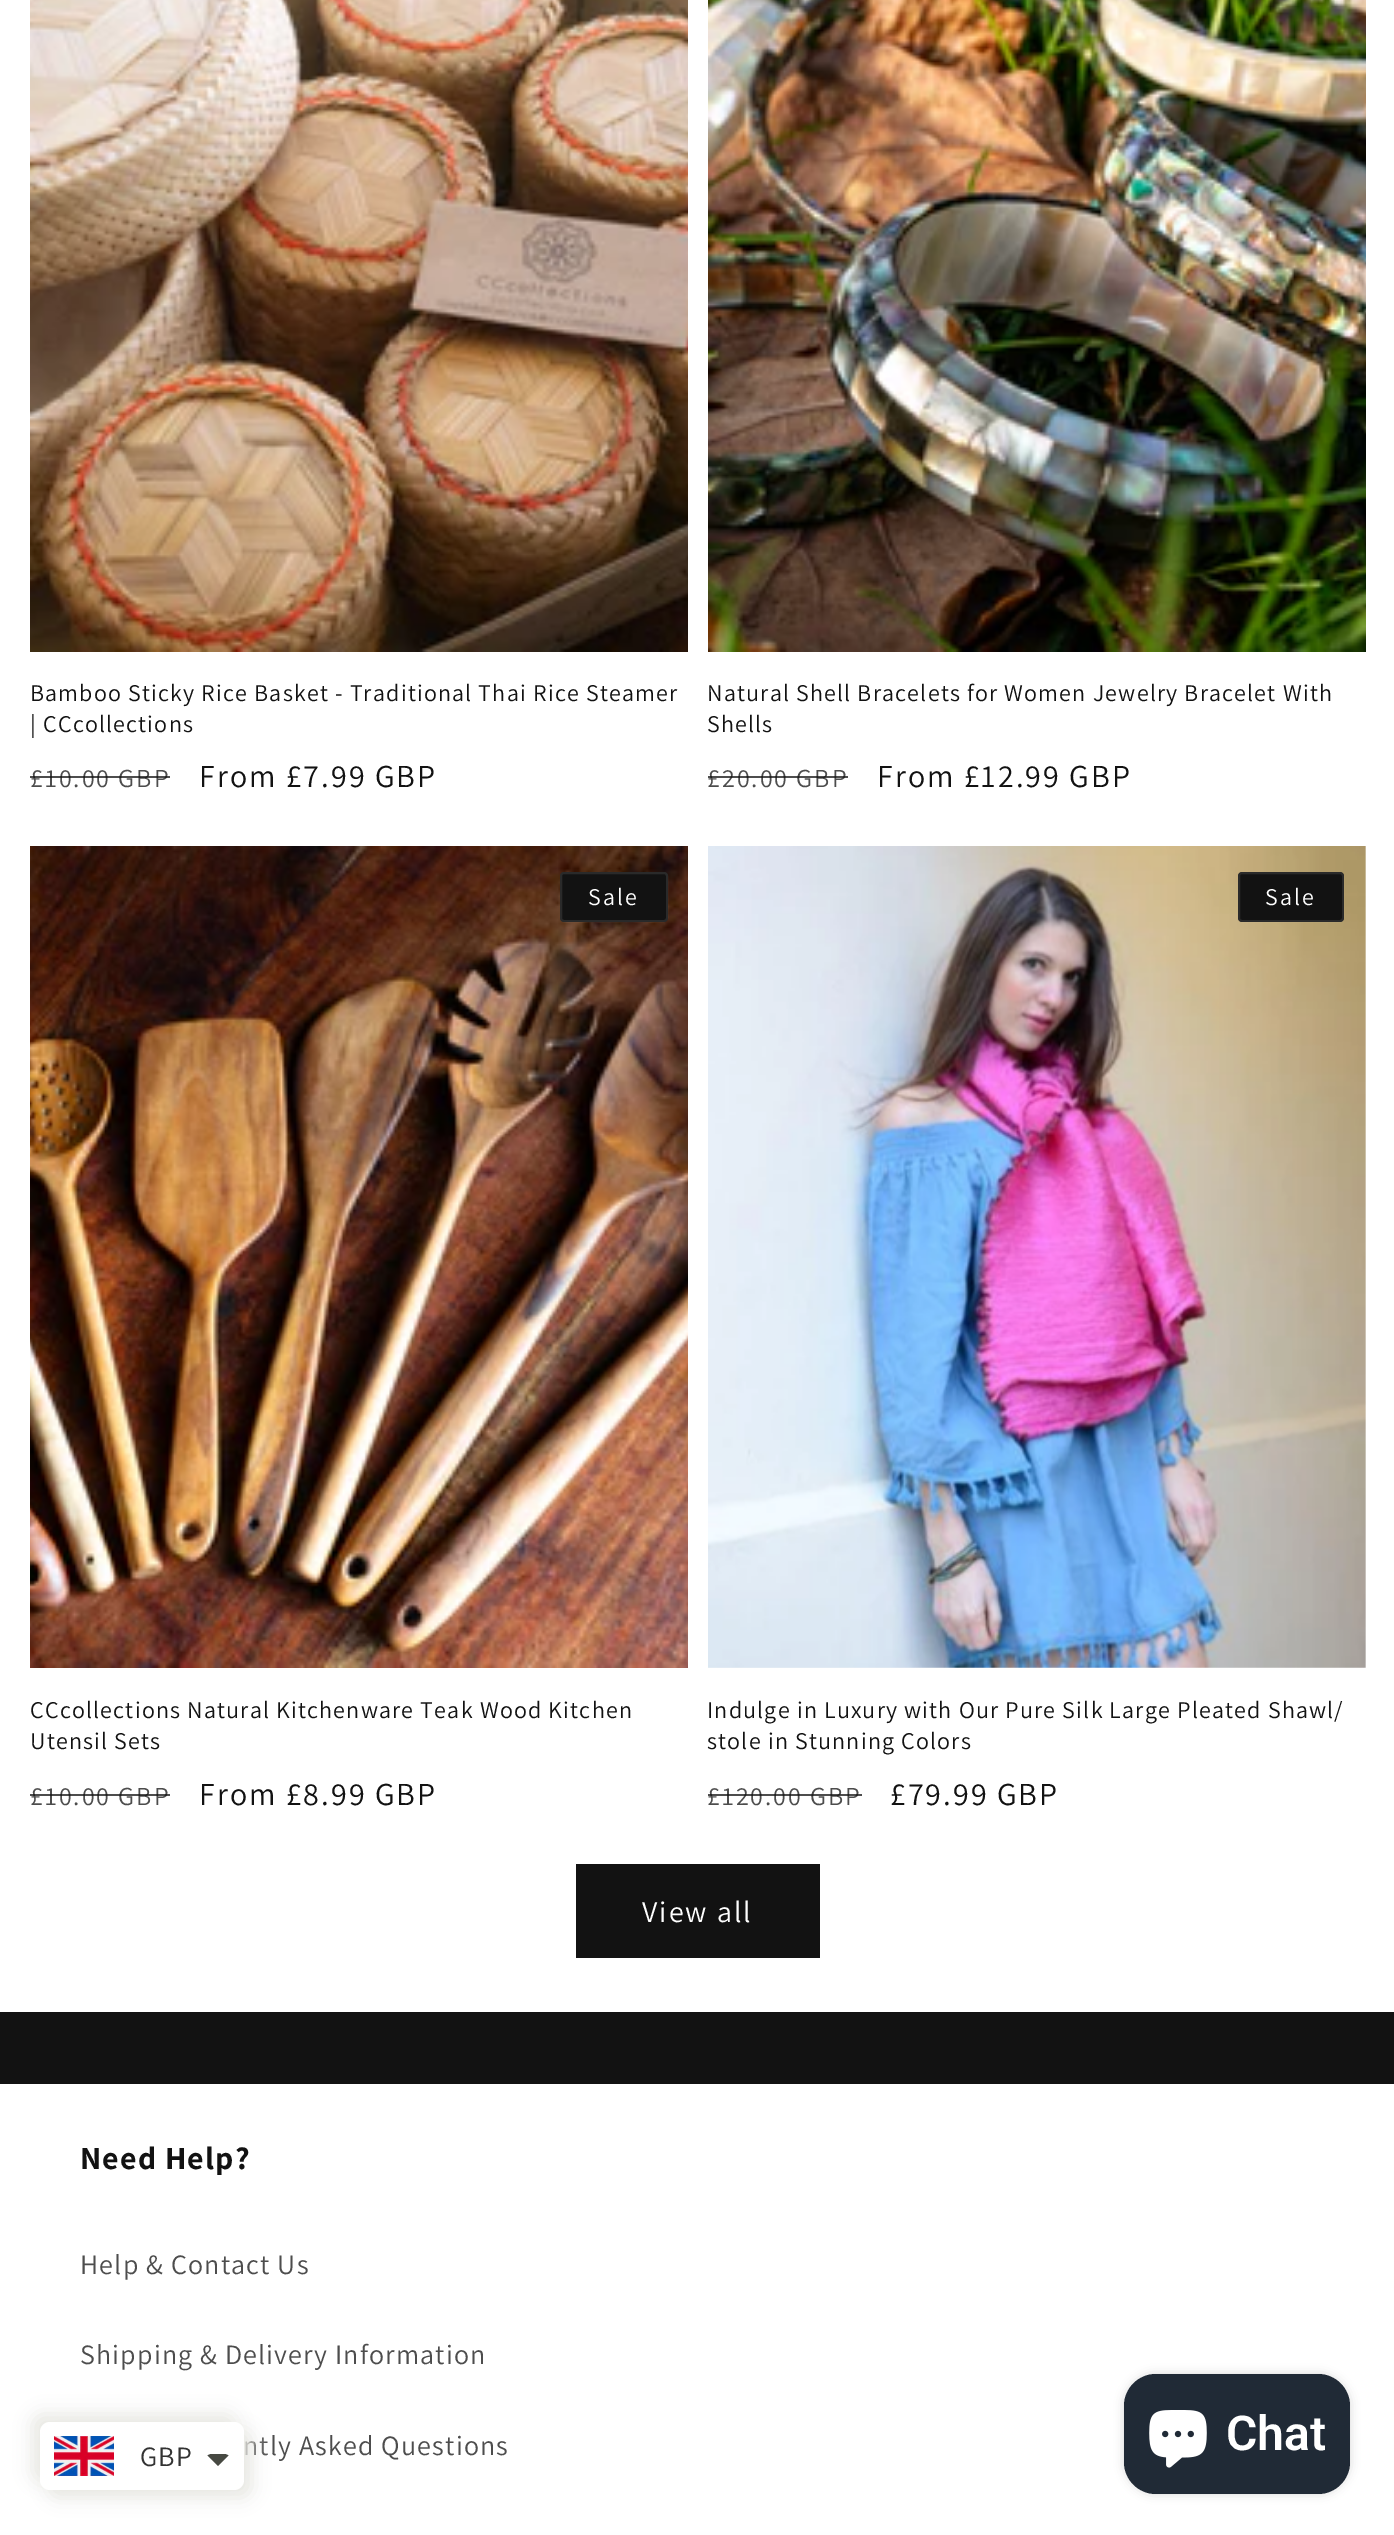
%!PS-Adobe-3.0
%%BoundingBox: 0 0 1394 2535
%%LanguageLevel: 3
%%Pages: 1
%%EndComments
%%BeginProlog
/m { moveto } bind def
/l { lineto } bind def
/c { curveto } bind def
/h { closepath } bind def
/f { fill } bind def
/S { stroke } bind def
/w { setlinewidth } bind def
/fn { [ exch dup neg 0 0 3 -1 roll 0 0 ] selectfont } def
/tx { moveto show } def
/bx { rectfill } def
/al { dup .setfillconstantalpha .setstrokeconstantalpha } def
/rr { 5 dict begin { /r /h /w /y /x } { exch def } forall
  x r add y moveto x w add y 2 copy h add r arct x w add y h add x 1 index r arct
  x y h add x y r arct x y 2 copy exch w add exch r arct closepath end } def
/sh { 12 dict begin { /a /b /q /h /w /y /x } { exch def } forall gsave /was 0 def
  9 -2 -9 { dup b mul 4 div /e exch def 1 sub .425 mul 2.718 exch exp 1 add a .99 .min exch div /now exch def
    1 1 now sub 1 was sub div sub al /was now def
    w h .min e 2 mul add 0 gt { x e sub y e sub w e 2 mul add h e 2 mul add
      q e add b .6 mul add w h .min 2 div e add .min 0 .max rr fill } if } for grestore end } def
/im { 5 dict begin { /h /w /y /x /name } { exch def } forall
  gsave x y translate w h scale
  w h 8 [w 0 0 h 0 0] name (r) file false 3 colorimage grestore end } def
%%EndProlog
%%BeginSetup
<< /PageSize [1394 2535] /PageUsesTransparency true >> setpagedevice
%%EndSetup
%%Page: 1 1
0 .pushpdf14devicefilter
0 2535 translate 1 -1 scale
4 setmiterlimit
0.071 setgray
0 0 1394 2535 bx
1 setgray
0 0 1394 2012 bx
(image0.raw) 30 0 658 652 im
/Assistant-Regular 24 fn
0.071 setgray
30 701 m 1.2 0 (Bamboo Sticky Rice Basket - Traditional Thai Rice Steamer) ashow
30 732 m 1.2 0 (| CCcollections) ashow
/Assistant-Regular 26 fn
0.302 setgray
30 787 m 2 0 (£10.00 GBP) ashow
0.75 al
0.071 setgray
30 776 140 2 bx
/Assistant-Regular 32 fn
1 al
199 787 m 2 0 (From £7.99 GBP) ashow
(image1.raw) 708 0 658 652 im
/Assistant-Regular 24 fn
707 701 m 1.2 0 (Natural Shell Bracelets for Women Jewelry Bracelet With) ashow
707 732 m 1.2 0 (Shells) ashow
/Assistant-Regular 26 fn
0.302 setgray
707 787 m 2 0 (£20.00 GBP) ashow
0.75 al
0.071 setgray
708 776 140 2 bx
/Assistant-Regular 32 fn
1 al
877 787 m 2 0 (From £12.99 GBP) ashow
(image2.raw) 30 846 658 822 im
560 872 108 50 4 rr f
0.1 al
1 setgray
2 w
561 873 106 48 3 rr S
/Assistant-Regular 24 fn
1 al
588 905 m 2 0 (Sale) ashow
0.071 setgray
30 1718 m 1.2 0 (CCcollections Natural Kitchenware Teak Wood Kitchen) ashow
30 1749 m 1.2 0 (Utensil Sets) ashow
/Assistant-Regular 26 fn
0.302 setgray
30 1805 m 2 0 (£10.00 GBP) ashow
0.75 al
0.071 setgray
30 1794 140 2 bx
/Assistant-Regular 32 fn
1 al
199 1805 m 2 0 (From £8.99 GBP) ashow
(image3.raw) 708 846 658 822 im
1238 872 106 50 4 rr f
0.1 al
1 setgray
1239 873 104 48 3 rr S
/Assistant-Regular 24 fn
1 al
1265 905 m 2 0 (Sale) ashow
0.071 setgray
707 1718 m 1.2 0 (Indulge in Luxury with Our Pure Silk Large Pleated Shawl/) ashow
707 1749 m 1.2 0 (stole in Stunning Colors) ashow
/Assistant-Regular 26 fn
0.302 setgray
707 1805 m 2 0 (£120.00 GBP) ashow
0.75 al
0.071 setgray
708 1794 154 2 bx
/Assistant-Regular 32 fn
1 al
890 1805 m 2 0 (£79.99 GBP) ashow
576 1864 244 94 bx
/Assistant-Regular 30 fn
1 setgray
642 1922 m 2 0 (View all) ashow
0 2084 1394 451 bx
/Assistant-Bold 32 fn
0.071 setgray
80 2169 m 1.2 0 (Need Help?) ashow
/Assistant-Regular 28 fn
0.302 setgray
80 2274 m 1.2 0 (Help & Contact Us) ashow
80 2364 m 1.2 0 (Shipping & Delivery Information) ashow
243 2455 m 1.2 0 (ntly Asked Questions) ashow
0 setgray
1124 2374 226 120 32 5 0.15 sh
0.125 0.165 0.212 setrgbcolor
1124 2374 226 120 32 rr f
(image4.raw) 1149 2410 58 58 im
/Roboto-SemiBold 48 fn
1 setgray
(Chat) 1226 2450 tx
0.91 0.91 0.886 setrgbcolor
32 2414 204 68 10 9 1 sh
48 2430 204 68 10 9 1 sh
1 setgray
40 2422 204 68 10 rr f
(image5.raw) 54 2436 60 40 im
/Assistant-Regular 28 fn
0.2 setgray
140 2466 m 1.2 0 (GBP) ashow
0.278 0.286 0.259 setrgbcolor
212 2454 m 210 2454 209 2454.5 207.5 2455.5 c 218 2466 l 228.5 2455.5 l 227 2454.5 226 2454 224 2454 c h f
.poppdf14devicefilter showpage
%%EOF
